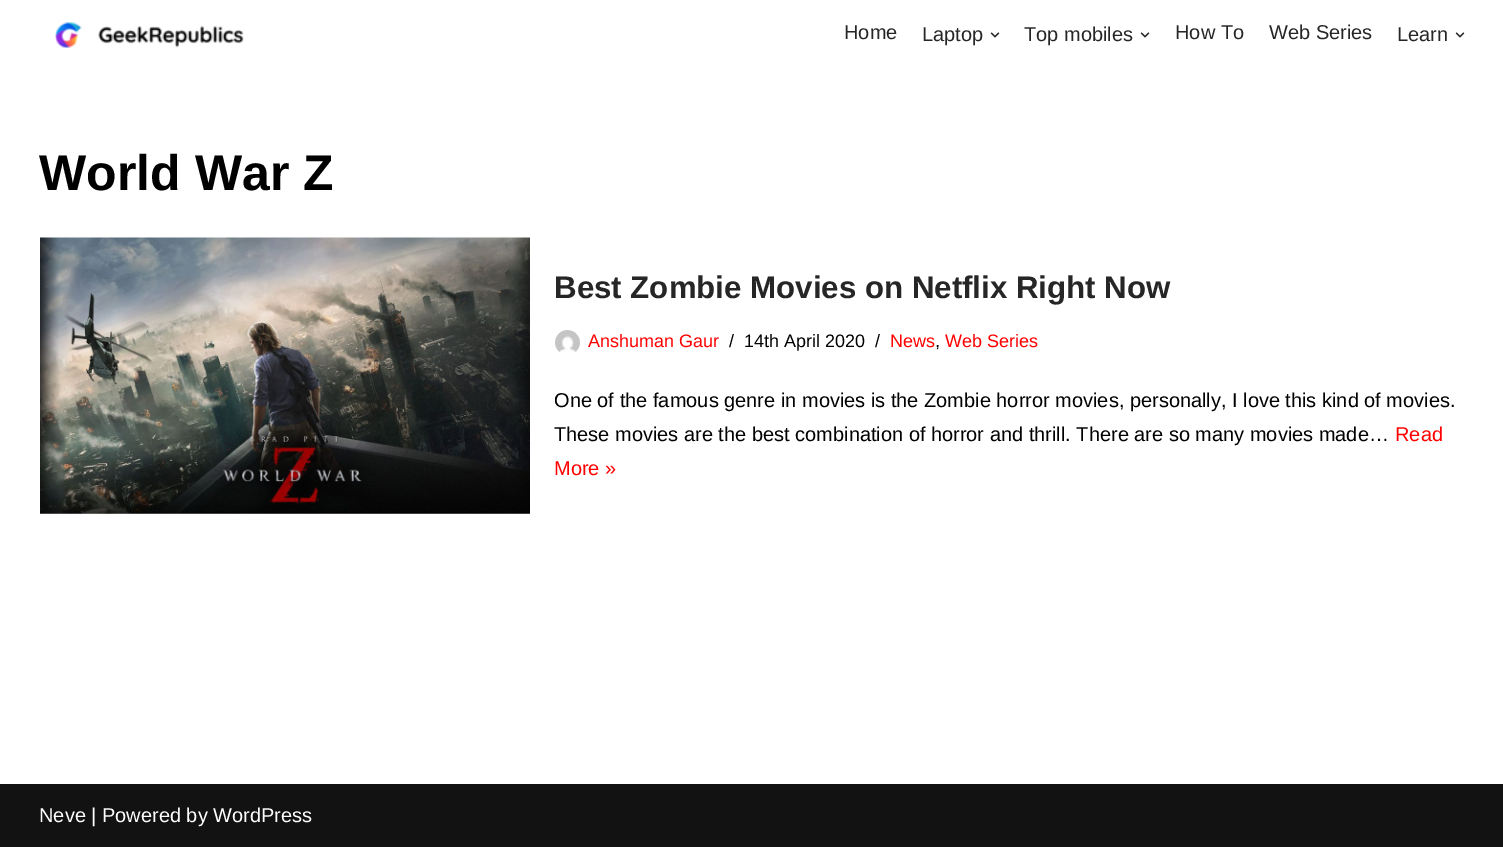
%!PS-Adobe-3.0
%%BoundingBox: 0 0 1503 847
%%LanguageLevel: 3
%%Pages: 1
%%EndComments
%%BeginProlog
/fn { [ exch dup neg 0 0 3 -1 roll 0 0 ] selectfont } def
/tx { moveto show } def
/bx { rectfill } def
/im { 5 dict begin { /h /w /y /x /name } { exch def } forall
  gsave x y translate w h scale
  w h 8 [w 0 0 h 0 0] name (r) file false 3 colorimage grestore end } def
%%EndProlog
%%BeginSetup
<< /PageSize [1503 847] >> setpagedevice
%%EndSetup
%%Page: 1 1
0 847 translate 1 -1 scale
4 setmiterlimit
1 setgray
0 0 1503 847 bx
(image0.raw) 55 22 189 26 im
/LiberationSans-Regular 20 fn
0.153 0.149 0.149 setrgbcolor
(Home) 844 39 tx
(Laptop) 922 41 tx
(image1.raw) 990 32 10 6 im
(Top mobiles) 1024 41 tx
(image1.raw) 1140 32 10 6 im
(How To) 1175 39 tx
(Web Series) 1269 39 tx
(Learn) 1397 41 tx
(image1.raw) 1455 32 10 6 im
/LiberationSans-Bold 50 fn
0 setgray
(World War Z) 39 190 tx
(image2.raw) 40 237 490 277 im
/LiberationSans-Bold 31.25 fn
0.153 0.149 0.149 setrgbcolor
(Best Zombie Movies on Netflix Right Now) 554 298 tx
(image3.raw) 555 330 25 23 im
/LiberationSans-Regular 18 fn
1 0 0 setrgbcolor
(Anshuman Gaur) 588 347 tx
0 setgray
(/) 729 347 tx
(14th April 2020) 744 347 tx
(/) 875 347 tx
1 0 0 setrgbcolor
(News) 890 347 tx
0 setgray
(,) 935 347 tx
1 0 0 setrgbcolor
(Web Series) 945 347 tx
/LiberationSans-Regular 20 fn
0 setgray
(One of the famous genre in movies is the Zombie horror movies, personally, I love this kind of movies.) 554 407 tx
(These movies are the best combination of horror and thrill. There are so many movies made…) 554 441 tx
1 0 0 setrgbcolor
(Read) 1395 441 tx
(More ») 554 475 tx
0.071 setgray
0 784 1503 63 bx
1 setgray
(Neve | Powered by WordPress) 39 822 tx
showpage
%%EOF
